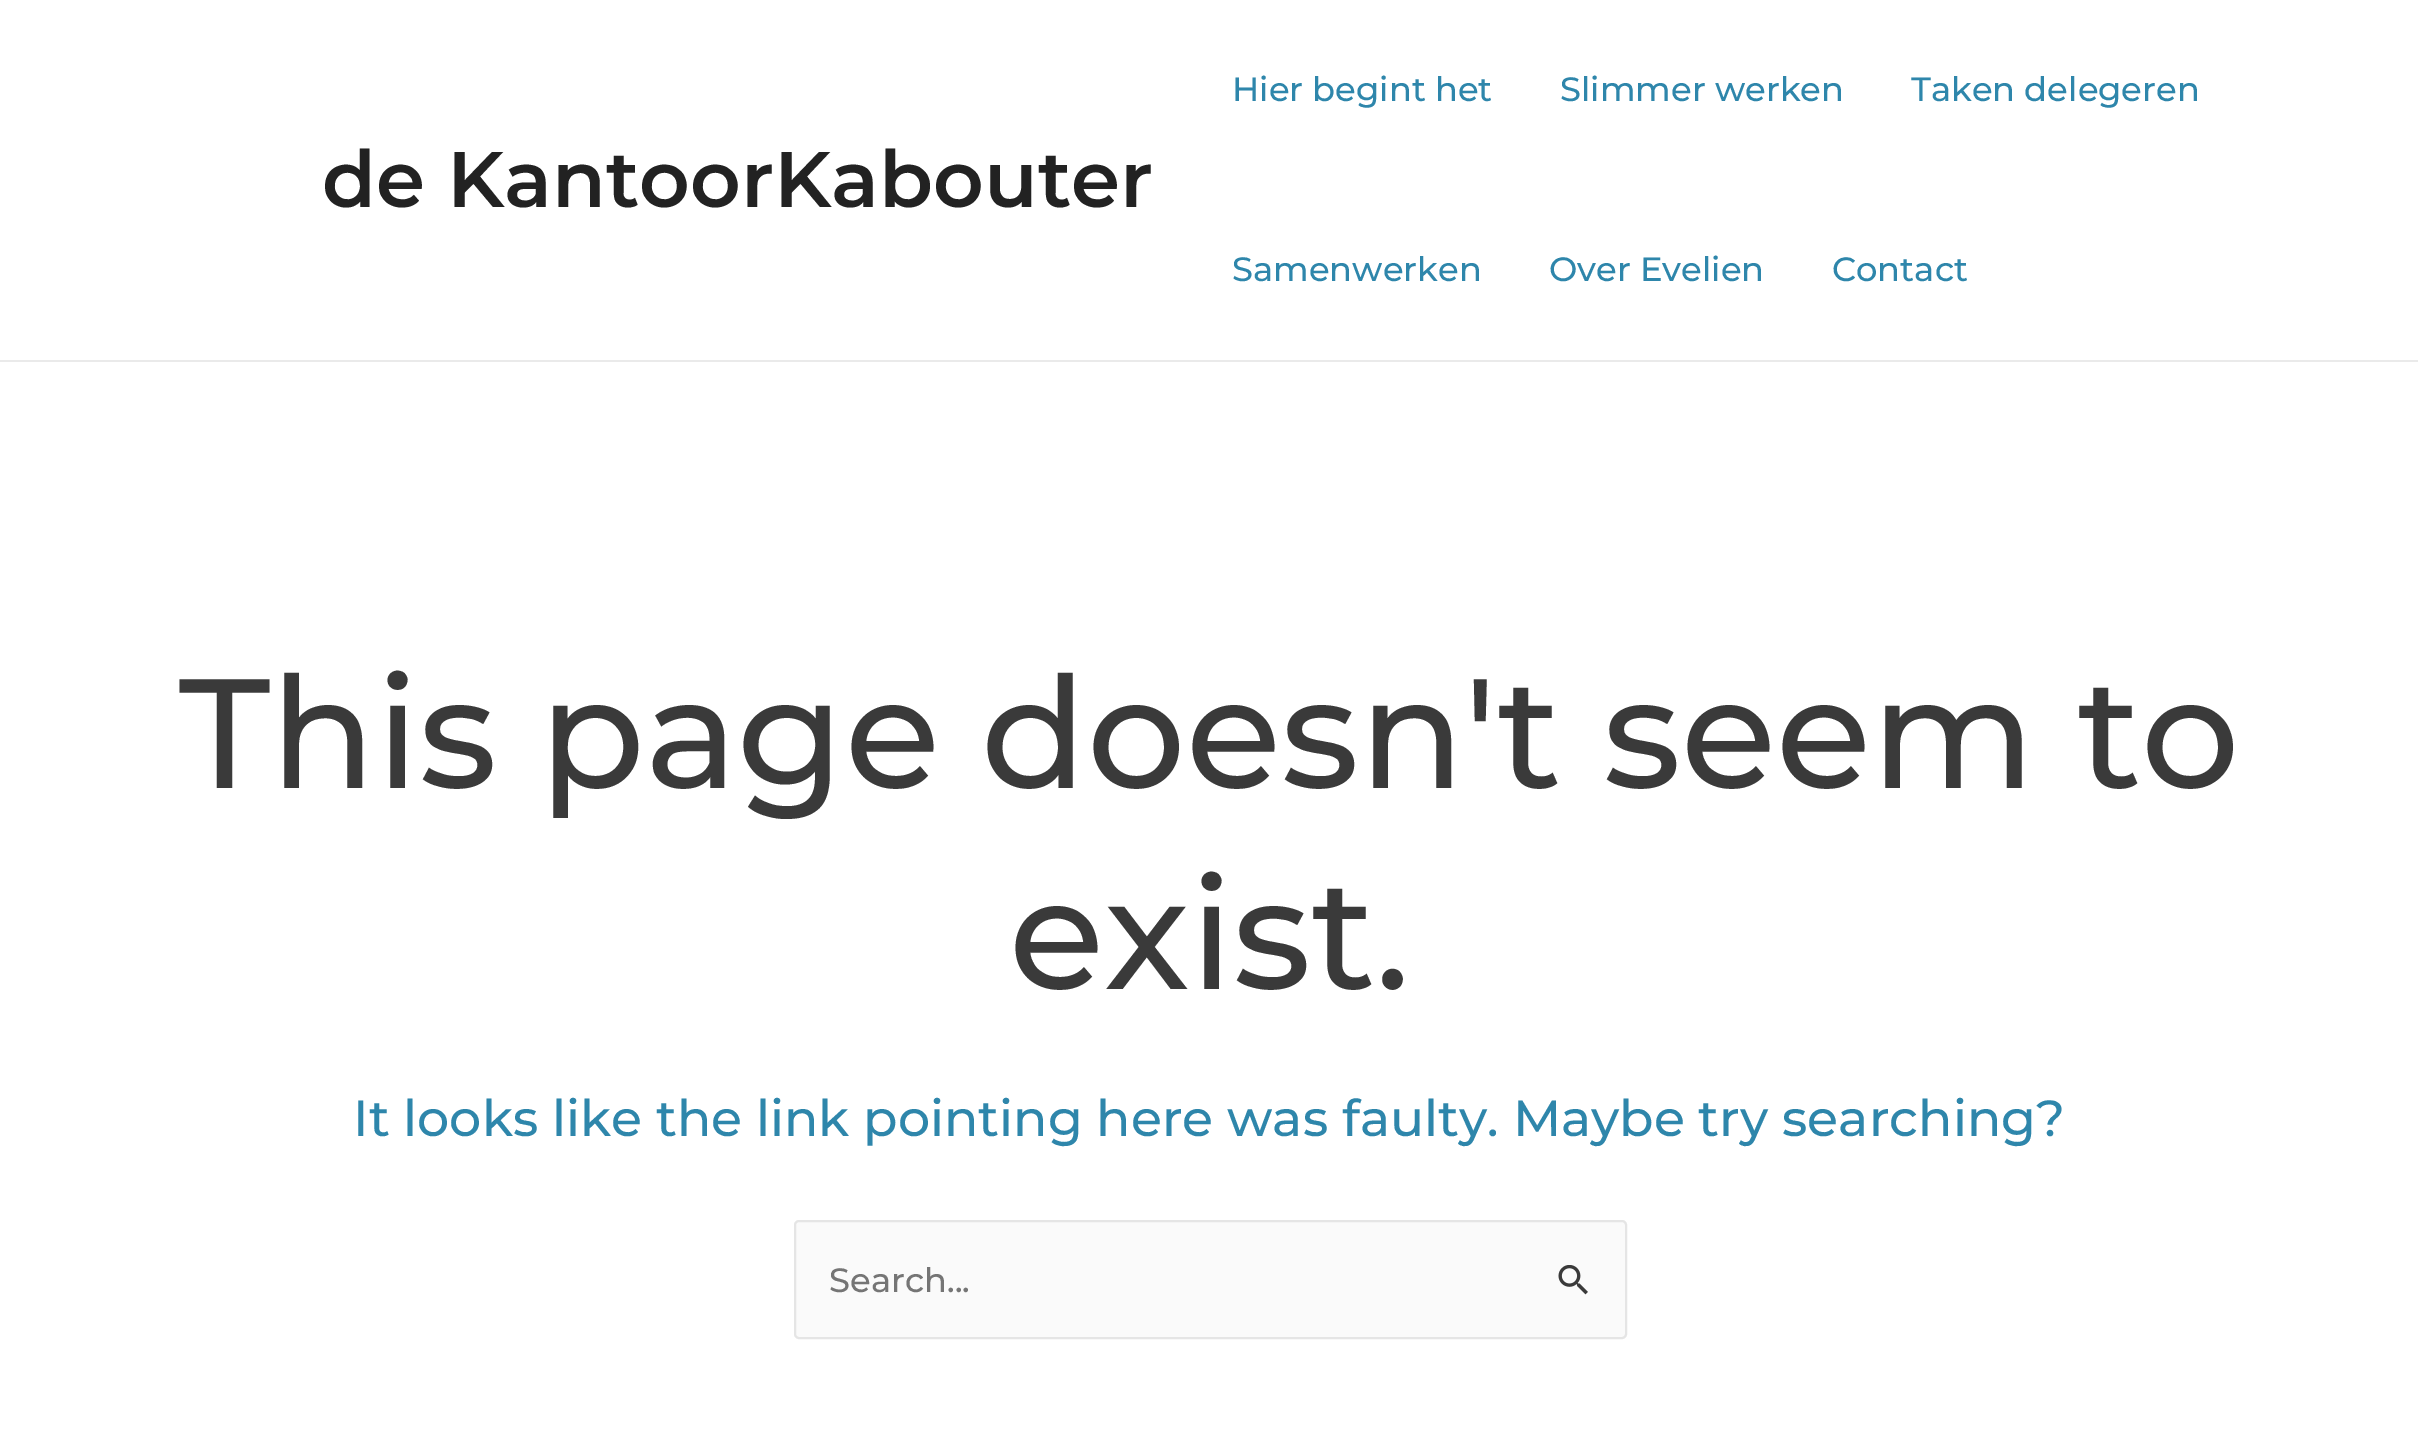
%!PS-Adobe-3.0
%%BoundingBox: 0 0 2418 1431
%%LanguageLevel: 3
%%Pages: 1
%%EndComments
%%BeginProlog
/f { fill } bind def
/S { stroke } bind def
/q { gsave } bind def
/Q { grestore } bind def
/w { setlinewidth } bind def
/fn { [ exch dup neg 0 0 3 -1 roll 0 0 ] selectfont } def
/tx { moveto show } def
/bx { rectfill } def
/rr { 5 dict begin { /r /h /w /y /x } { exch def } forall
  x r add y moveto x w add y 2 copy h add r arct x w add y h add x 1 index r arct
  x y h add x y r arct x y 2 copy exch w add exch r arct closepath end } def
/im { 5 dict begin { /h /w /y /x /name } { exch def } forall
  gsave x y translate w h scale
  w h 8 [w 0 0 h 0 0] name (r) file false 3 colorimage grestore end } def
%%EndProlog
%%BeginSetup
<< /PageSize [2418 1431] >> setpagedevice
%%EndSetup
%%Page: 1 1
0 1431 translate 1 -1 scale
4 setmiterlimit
1 setgray
0 0 2418 1431 bx
0.918 setgray
0 360 2418 2 bx
/Montserrat-SemiBold 78.75 fn
0.133 setgray
(de KantoorKabouter) 322 207 tx
/Montserrat-Medium 33.75 fn
0.18 0.525 0.671 setrgbcolor
(Hier begint het) 1232 101 tx
(Slimmer werken) 1560 101 tx
(Taken delegeren) 1911 101 tx
(Samenwerken) 1232 281 tx
(Over Evelien) 1549 281 tx
(Contact) 1832 281 tx
/Montserrat-Medium 155.25 fn
0.227 setgray
(This page doesn't seem to) 179 788 tx
(exist.) 1009 989 tx
/Montserrat-Medium 50.6 fn
0.18 0.525 0.671 setrgbcolor
(It looks like the link pointing here was faulty. Maybe try searching?) 353 1136 tx
0.98 setgray
795 1221 831 117 4 rr q f Q
0.898 setgray
2 w
S
/Montserrat-Medium 33.75 fn
0.459 setgray
(Search...) 829 1292 tx
(image0.raw) 1558 1265 30 30 im
showpage
%%EOF
